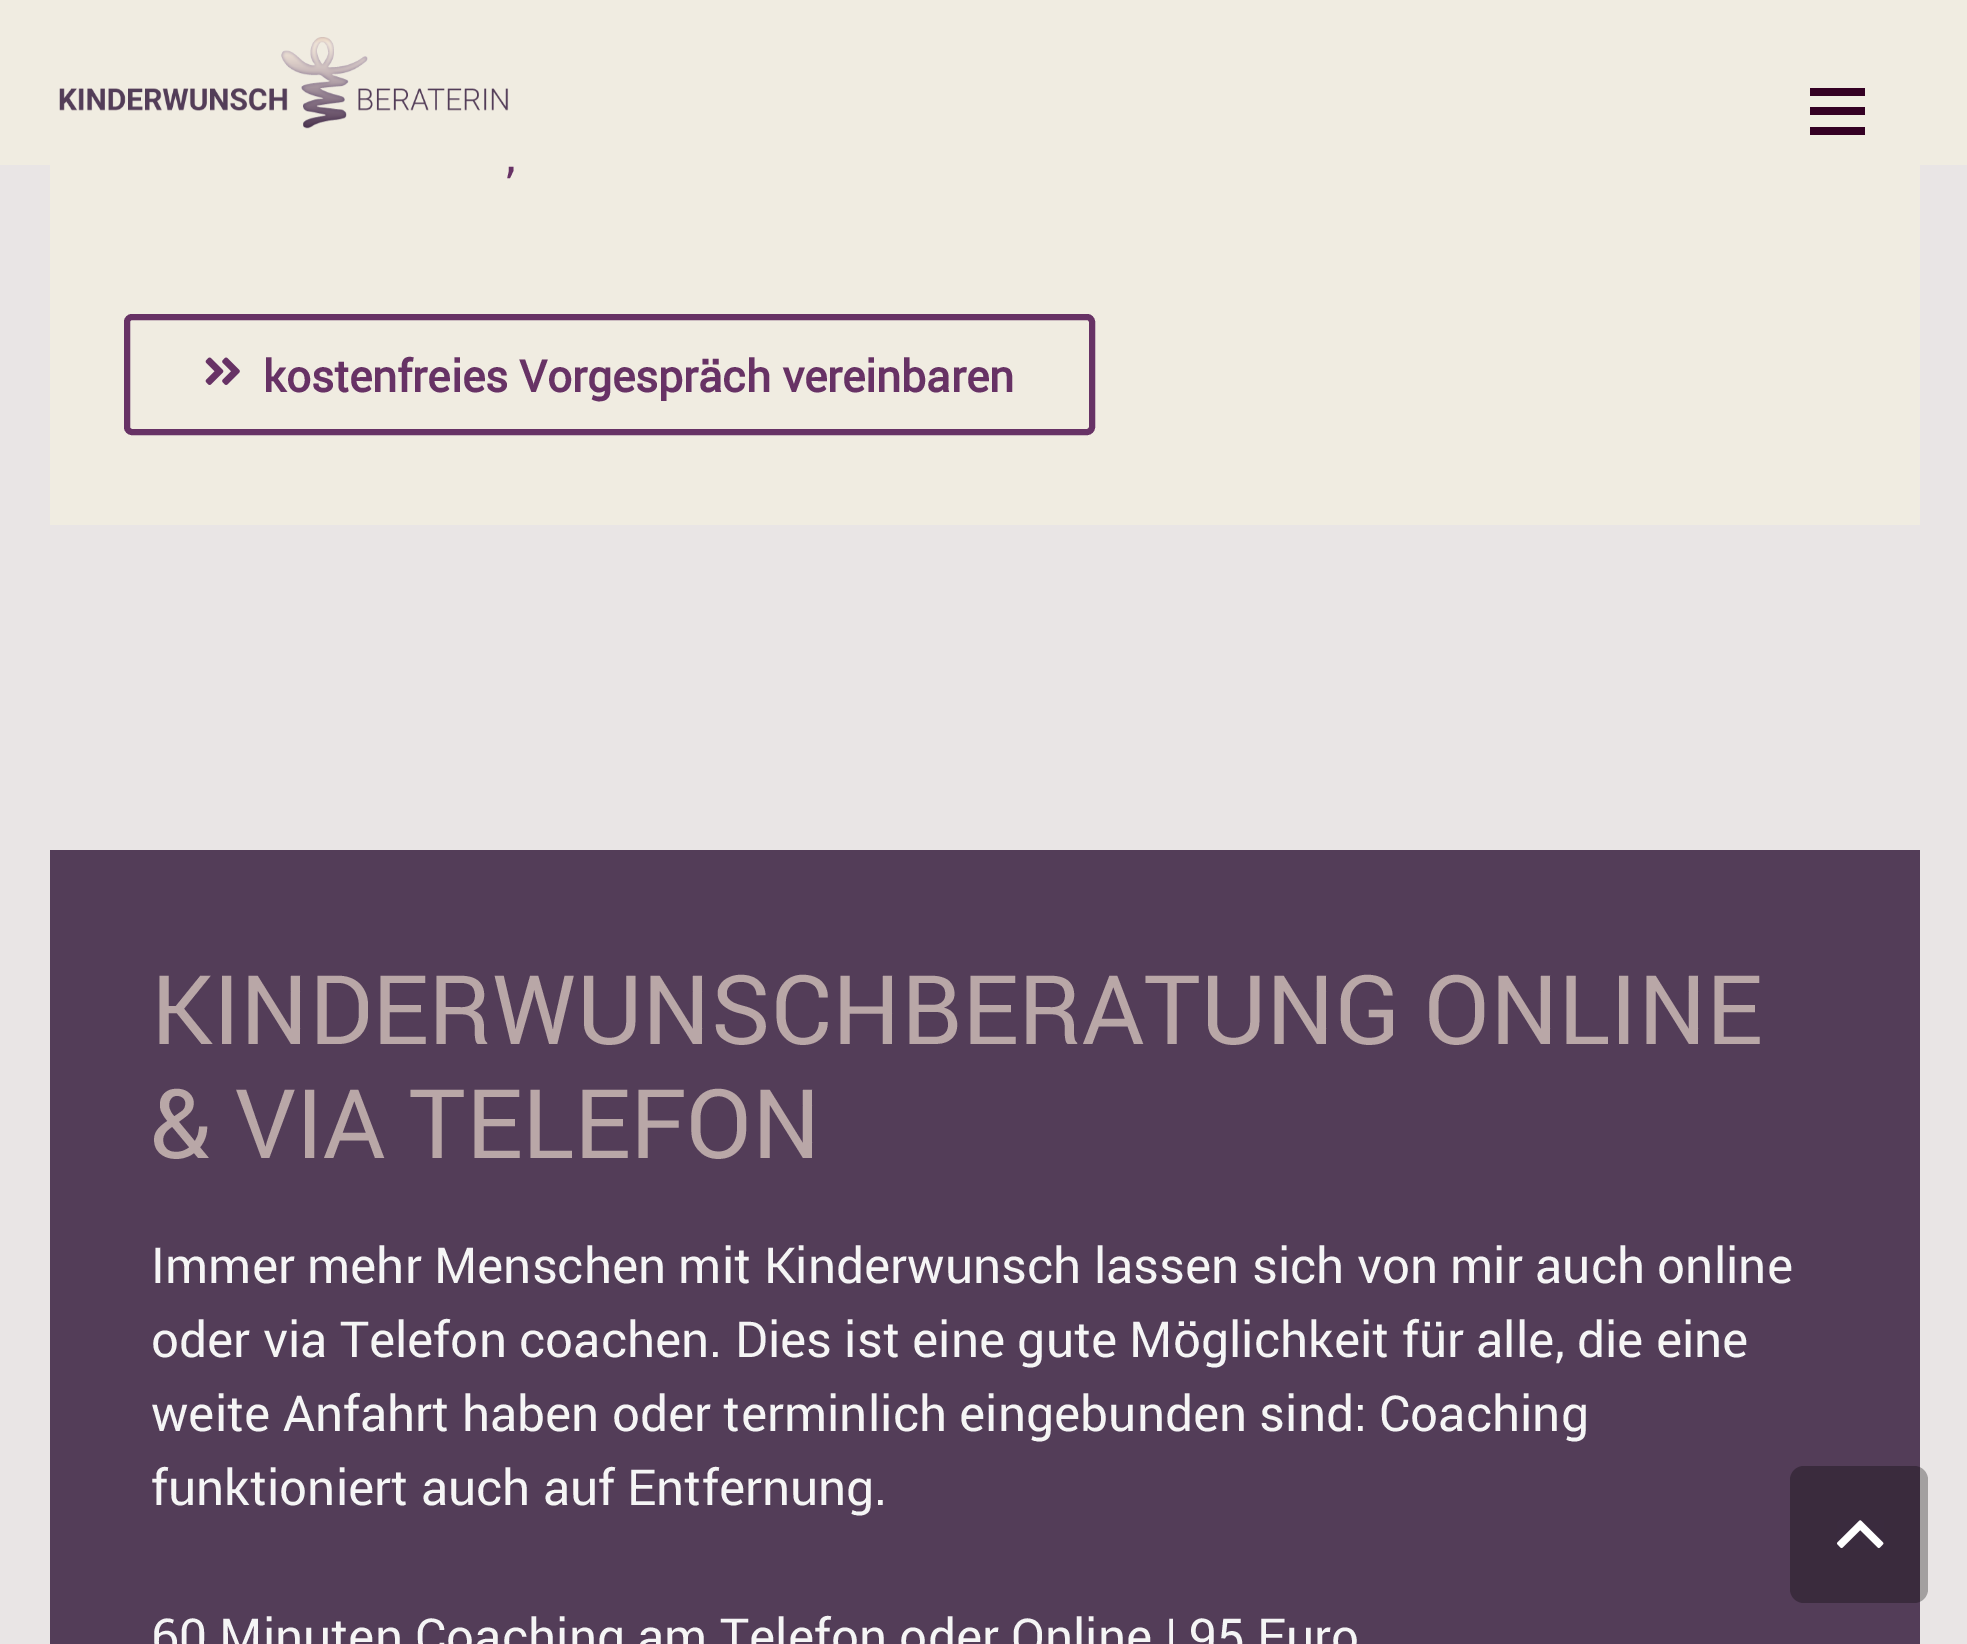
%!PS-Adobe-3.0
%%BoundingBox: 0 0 1967 1644
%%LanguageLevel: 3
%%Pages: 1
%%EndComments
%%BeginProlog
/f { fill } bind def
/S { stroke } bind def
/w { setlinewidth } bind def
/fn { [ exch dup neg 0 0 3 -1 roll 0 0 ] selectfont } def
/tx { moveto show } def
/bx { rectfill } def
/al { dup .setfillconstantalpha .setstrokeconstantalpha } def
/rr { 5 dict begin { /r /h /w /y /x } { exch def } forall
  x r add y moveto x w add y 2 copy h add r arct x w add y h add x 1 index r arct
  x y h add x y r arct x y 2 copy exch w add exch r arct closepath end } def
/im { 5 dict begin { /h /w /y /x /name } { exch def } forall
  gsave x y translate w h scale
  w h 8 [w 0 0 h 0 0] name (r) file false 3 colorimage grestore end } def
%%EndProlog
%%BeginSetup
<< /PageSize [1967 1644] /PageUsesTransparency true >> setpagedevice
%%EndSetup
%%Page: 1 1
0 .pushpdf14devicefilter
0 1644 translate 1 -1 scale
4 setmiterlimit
0.914 0.898 0.898 setrgbcolor
0 0 1967 1644 bx
0.941 0.925 0.882 setrgbcolor
0 0 1967 165 bx
(image0.raw) 59 37 450 92 im
0.204 0 0.137 setrgbcolor
1810 107 55 8 bx
1810 88 55 8 bx
1810 127 55 8 bx
0.941 0.925 0.882 setrgbcolor
50 165 1870 360 bx
/Roboto-Regular 49.5 fn
0.404 0.196 0.396 setrgbcolor
(,) 506 172 tx
(image1.raw) 205 357 35 28 im
6 w
127 317 965 115 5 rr S
/Roboto-Bold 44 fn
(kostenfreies Vorgespräch vereinbaren) 263 392 tx
0.325 0.239 0.345 setrgbcolor
50 850 1870 794 bx
/Roboto-Regular 96.25 fn
0.725 0.655 0.655 setrgbcolor
(KINDERWUNSCHBERATUNG ONLINE) 151 1044 tx
(& VIA TELEFON) 151 1158 tx
/Roboto-Regular 49.5 fn
0.961 setgray
(Immer mehr Menschen mit Kinderwunsch lassen sich von mir auch online) 151 1283 tx
(oder via Telefon coachen. Dies ist eine gute Möglichkeit für alle, die eine) 151 1357 tx
(weite Anfahrt haben oder terminlich eingebunden sind: Coaching) 151 1431 tx
(funktioniert auch auf Entfernung.) 151 1505 tx
(60 Minuten Coaching am Telefon oder Online | 95 Euro) 151 1654 tx
0.3 al
0 setgray
1790 1466 138 137 14 rr f
1 al
(image2.raw) 1837 1520 47 29 im
.poppdf14devicefilter showpage
%%EOF
